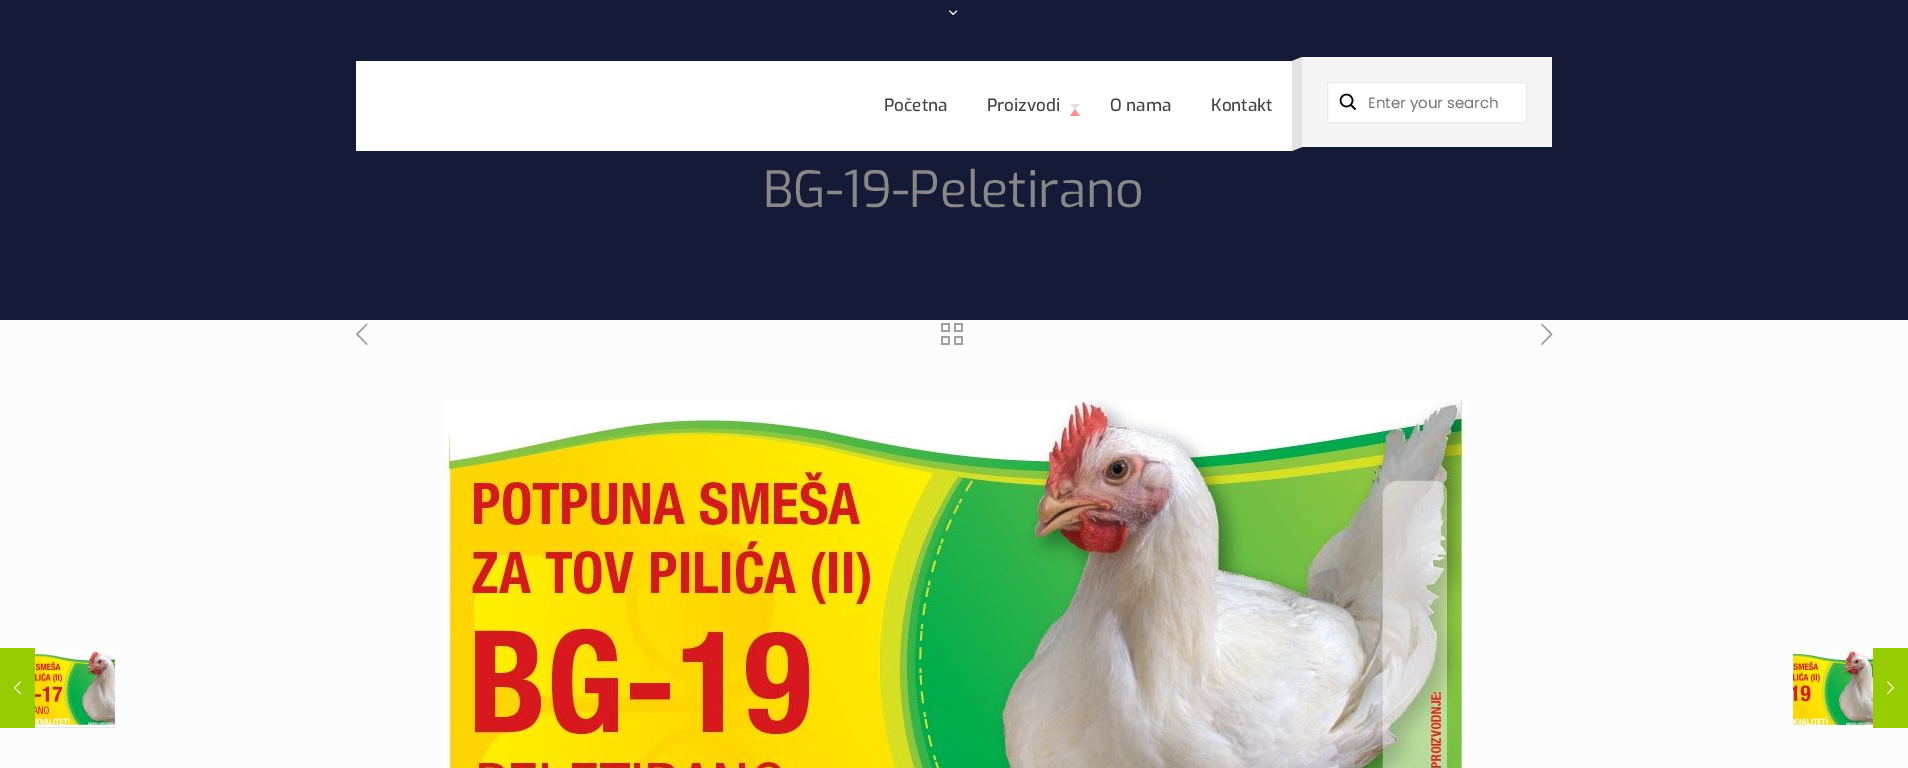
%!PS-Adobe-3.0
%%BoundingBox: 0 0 1908 768
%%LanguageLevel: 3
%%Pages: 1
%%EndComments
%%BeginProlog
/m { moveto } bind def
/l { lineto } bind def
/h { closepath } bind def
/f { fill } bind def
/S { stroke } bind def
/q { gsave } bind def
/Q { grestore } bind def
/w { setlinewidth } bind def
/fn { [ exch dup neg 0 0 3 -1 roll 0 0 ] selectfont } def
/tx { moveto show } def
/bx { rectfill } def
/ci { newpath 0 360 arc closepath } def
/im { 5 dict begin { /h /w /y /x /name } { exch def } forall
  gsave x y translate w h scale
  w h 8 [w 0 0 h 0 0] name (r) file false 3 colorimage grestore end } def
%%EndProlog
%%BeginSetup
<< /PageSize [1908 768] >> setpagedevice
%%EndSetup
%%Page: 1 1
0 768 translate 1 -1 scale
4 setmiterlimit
0.988 setgray
0 0 1908 768 bx
0.082 0.102 0.212 setrgbcolor
0 0 1908 320 bx
(image0.raw) 949 10 9 5 im
1 setgray
356 61 936 90 bx
/Exo-Medium 17 fn
0.267 setgray
(Početna) 884 111 tx
(Proizvodi) 987 111 tx
0.878 setgray
1070 104 m 1080 104 l 1075 109 l h f
1 0.553 0.553 setrgbcolor
1080 116 m 1070 116 l 1075 109 l h f
0.267 setgray
(O nama) 1110 111 tx
(Kontakt) 1211 111 tx
0.961 setgray
1302 57 250 90 bx
0.89 setgray
1292 61 m 1302 57 l 1302 147 l 1292 151 l h f
1 setgray
1327.5 82.5 m 1526.5 82.5 l 1526.5 122.5 l 1327.5 122.5 l h q f Q
0.922 setgray
S
0 setgray
1.5 w
1346.5 100.5 6 ci S
1350.5 104.5 m 1355.5 109.5 l S
/Poppins-Regular 15 fn
0.459 setgray
(Enter your search) 1368 108 tx
/Exo-Regular 50 fn
0.533 setgray
(BG-19-Peletirano) 763 207 tx
(image1.raw) 356 323 12 22 im
(image2.raw) 941 323 22 22 im
(image3.raw) 1541 323 12 22 im
(image4.raw) 444 400 1024 368 im
0.592 0.8 0.008 setrgbcolor
0 648 35 80 bx
(image5.raw) 14 681 7 14 im
(image6.raw) 35 648 80 80 im
(image7.raw) 1793 648 80 80 im
1873 648 35 80 bx
(image8.raw) 1887 681 7 14 im
showpage
%%EOF
